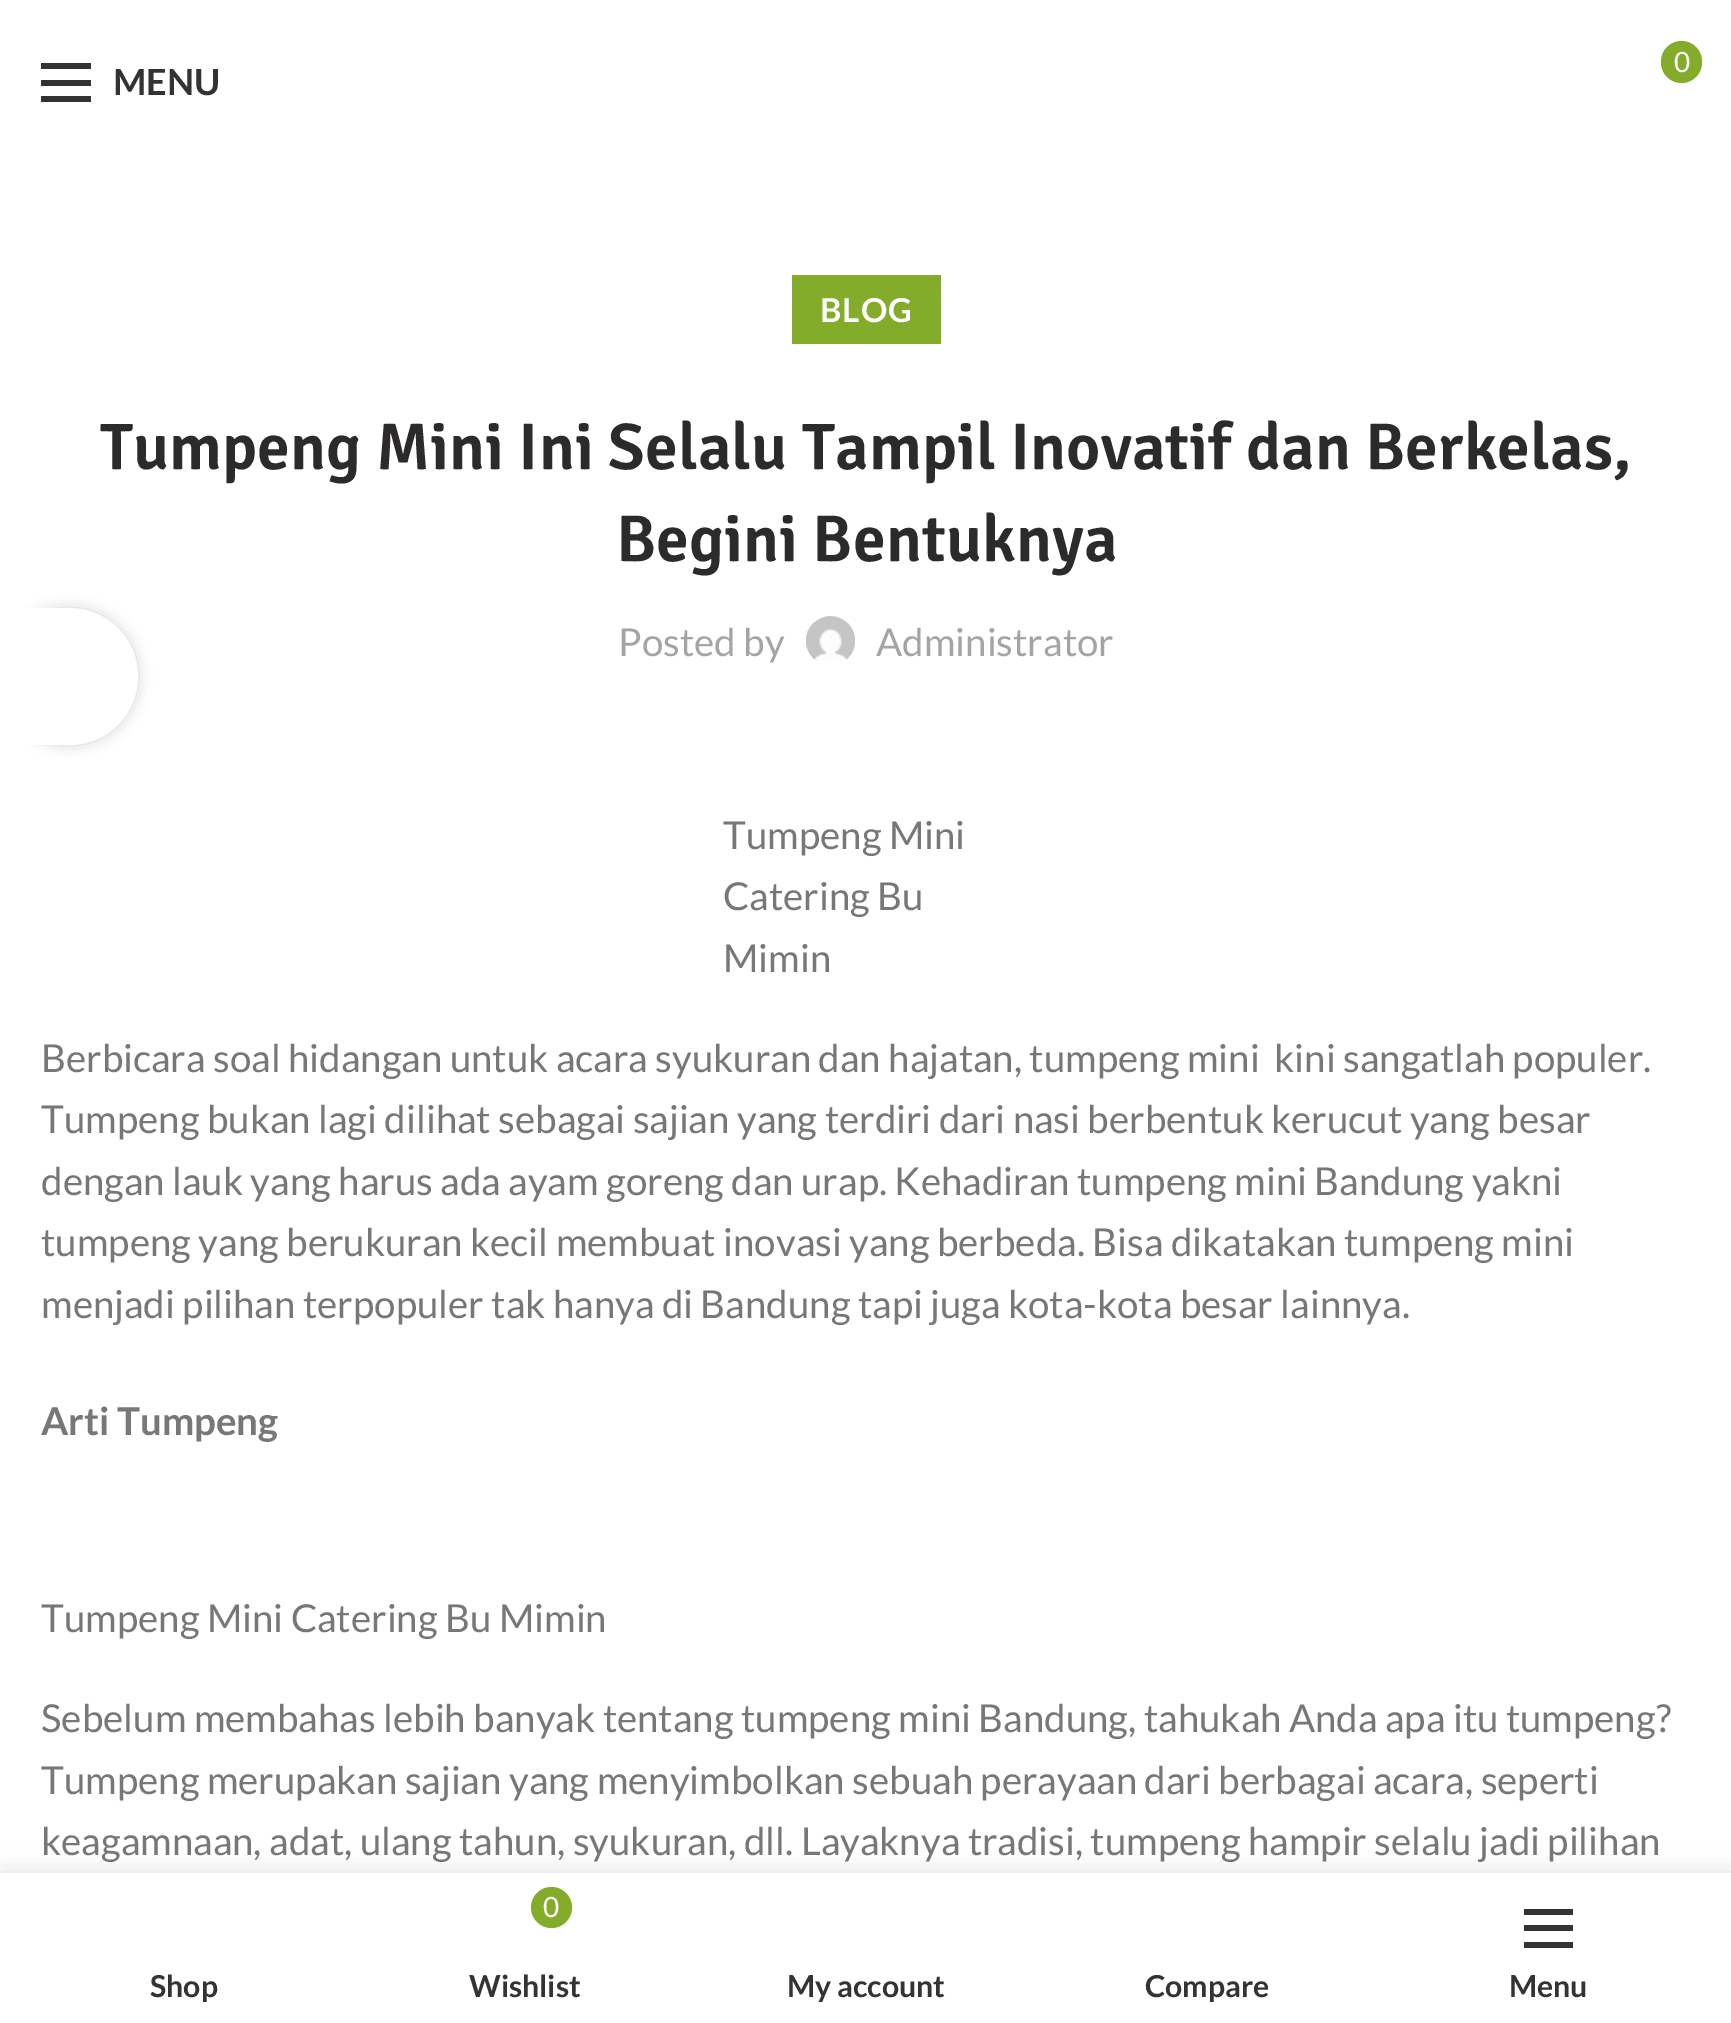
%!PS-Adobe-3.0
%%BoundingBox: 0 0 1731 2023
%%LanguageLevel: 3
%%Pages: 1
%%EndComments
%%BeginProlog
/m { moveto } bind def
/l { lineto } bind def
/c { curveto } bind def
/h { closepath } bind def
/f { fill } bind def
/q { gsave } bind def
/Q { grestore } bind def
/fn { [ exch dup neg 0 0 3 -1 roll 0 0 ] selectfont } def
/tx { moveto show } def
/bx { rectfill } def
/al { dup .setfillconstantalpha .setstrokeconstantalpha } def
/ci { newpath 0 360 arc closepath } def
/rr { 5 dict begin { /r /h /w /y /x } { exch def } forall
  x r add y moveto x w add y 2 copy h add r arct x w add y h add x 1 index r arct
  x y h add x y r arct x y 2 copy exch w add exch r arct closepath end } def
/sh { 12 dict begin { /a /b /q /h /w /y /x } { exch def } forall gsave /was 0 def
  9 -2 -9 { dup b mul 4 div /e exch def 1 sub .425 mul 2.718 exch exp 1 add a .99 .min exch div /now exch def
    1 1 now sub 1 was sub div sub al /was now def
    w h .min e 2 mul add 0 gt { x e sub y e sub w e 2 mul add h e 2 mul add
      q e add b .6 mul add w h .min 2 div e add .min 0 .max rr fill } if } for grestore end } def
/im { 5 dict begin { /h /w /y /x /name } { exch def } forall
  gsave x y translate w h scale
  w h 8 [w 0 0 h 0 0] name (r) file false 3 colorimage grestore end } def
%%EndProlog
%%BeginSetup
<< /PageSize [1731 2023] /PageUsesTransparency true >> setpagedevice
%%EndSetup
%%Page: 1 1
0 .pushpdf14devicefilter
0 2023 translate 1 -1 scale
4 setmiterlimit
1 setgray
0 0 1731 2023 bx
0.514 0.675 0.169 setrgbcolor
1661 41 41 42 20.5 rr f
/Lato-Regular 28 fn
1 setgray
(0) 1674 72 tx
0.2 setgray
41 80 50 6 bx
41 63 50 6 bx
41 96 50 6 bx
/Lato-Bold 36 fn
(MENU) 113 95 tx
0.514 0.675 0.169 setrgbcolor
792 275 149 69 bx
/Lato-Bold 33 fn
1 setgray
820 322 m 1 0 (BLOG) ashow
/Signika-SemiBold 66 fn
0.176 0.165 0.165 setrgbcolor
(Tumpeng Mini Ini Selalu Tampil Inovatif dan Berkelas,) 100 469 tx
(Begini Bentuknya) 616 561 tx
/Lato-Regular 38.5 fn
0.643 setgray
(Posted by) 618 656 tx
(image0.raw) 806 616 49 46 im
(Administrator) 876 656 tx
0.467 setgray
(Tumpeng Mini) 723 849 tx
(Catering Bu) 723 910 tx
(Mimin) 723 972 tx
(Berbicara soal hidangan untuk acara syukuran dan hajatan, tumpeng mini  kini sangatlah populer.) 41 1072 tx
(Tumpeng bukan lagi dilihat sebagai sajian yang terdiri dari nasi berbentuk kerucut yang besar) 41 1133 tx
(dengan lauk yang harus ada ayam goreng dan urap. Kehadiran tumpeng mini Bandung yakni) 41 1195 tx
(tumpeng yang berukuran kecil membuat inovasi yang berbeda. Bisa dikatakan tumpeng mini) 41 1256 tx
(menjadi pilihan terpopuler tak hanya di Bandung tapi juga kota-kota besar lainnya.) 41 1318 tx
/Lato-Bold 38.5 fn
(Arti Tumpeng) 41 1435 tx
/Lato-Regular 38.5 fn
(Tumpeng Mini Catering Bu Mimin) 41 1632 tx
(Sebelum membahas lebih banyak tentang tumpeng mini Bandung, tahukah Anda apa itu tumpeng?) 41 1732 tx
(Tumpeng merupakan sajian yang menyimbolkan sebuah perayaan dari berbagai acara, seperti) 41 1794 tx
(keagamnaan, adat, ulang tahun, syukuran, dll. Layaknya tradisi, tumpeng hampir selalu jadi pilihan) 41 1855 tx
q
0 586 m 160 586 l 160 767 l 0 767 l h 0 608 m 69.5 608 l 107.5 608 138 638.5 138 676.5 c 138 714.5 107.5 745 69.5 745 c 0 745 l h eoclip newpath
0 setgray
0 608 138 137 68.5 7 0.17 sh
Q
0.9 al
1 setgray
0 608 m 69.5 608 l 107.5 608 138 638.5 138 676.5 c 138 714.5 107.5 745 69.5 745 c 0 745 l h f
1 al
0 setgray
0 1873 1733 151 0 12.5 0.12 sh
1 setgray
0 1873 1731 150 bx
q
41 1966 286 36 rectclip
/Lato-Bold 30.25 fn
0.2 setgray
(Shop) 150 1997 tx
Q
0.514 0.675 0.169 setrgbcolor
551.5 1907.5 20.5 ci f
/Lato-Regular 28 fn
1 setgray
(0) 543 1917 tx
/Lato-Bold 30.25 fn
0.2 setgray
(Wishlist) 469 1997 tx
(My account) 787 1997 tx
q
1064 1966 286 36 rectclip
(Compare) 1145 1997 tx
Q
1524 1925 49 6 bx
1524 1909 49 6 bx
1524 1942 49 6 bx
(Menu) 1509 1997 tx
.poppdf14devicefilter showpage
%%EOF
